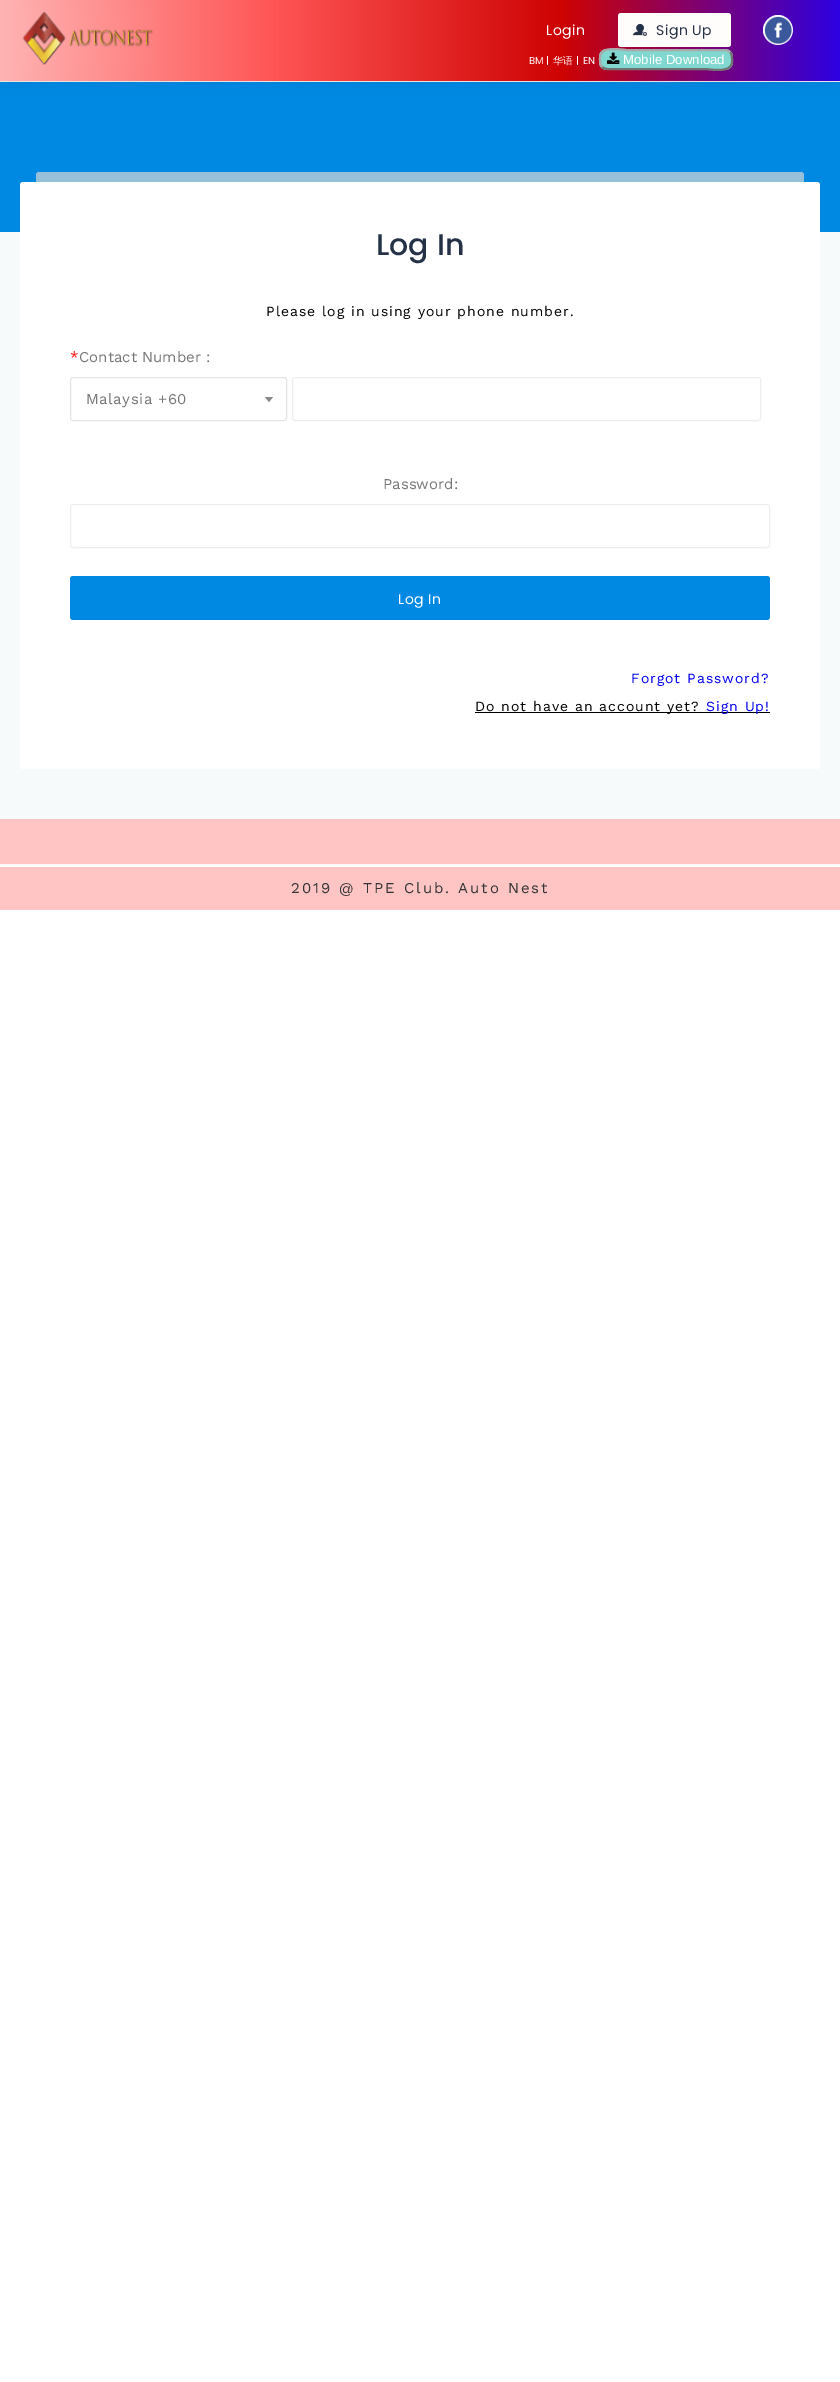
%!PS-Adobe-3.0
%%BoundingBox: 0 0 840 2382
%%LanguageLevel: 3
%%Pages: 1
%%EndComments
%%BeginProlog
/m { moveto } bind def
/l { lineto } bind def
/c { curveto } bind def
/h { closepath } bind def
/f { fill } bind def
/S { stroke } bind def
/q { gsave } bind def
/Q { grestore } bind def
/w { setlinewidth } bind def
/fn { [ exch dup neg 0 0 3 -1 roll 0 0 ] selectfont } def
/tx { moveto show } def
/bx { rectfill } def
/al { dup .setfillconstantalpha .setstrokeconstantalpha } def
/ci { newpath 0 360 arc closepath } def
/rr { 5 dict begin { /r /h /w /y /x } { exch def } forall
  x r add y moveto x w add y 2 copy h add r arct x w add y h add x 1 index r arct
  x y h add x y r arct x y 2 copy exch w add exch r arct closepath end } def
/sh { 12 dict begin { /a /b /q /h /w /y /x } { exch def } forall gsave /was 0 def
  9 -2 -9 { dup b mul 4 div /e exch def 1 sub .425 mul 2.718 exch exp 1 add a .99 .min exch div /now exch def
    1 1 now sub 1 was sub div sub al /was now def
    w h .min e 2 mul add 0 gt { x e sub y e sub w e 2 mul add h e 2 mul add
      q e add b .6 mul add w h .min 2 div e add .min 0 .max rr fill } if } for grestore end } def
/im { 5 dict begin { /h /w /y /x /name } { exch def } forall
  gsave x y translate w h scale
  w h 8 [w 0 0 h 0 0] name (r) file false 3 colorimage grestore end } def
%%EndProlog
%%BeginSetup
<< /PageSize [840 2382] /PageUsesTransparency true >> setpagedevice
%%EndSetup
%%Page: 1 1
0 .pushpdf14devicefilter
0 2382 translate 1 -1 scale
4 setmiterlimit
1 setgray
0 0 840 2382 bx
0 0.537 0.886 setrgbcolor
0 82 840 150 bx
0 setgray
0 0 840 82 0 7.5 0.05 sh
q 0 0 m 840 0 l 840 81 l 0 81 l h clip newpath
<< /ShadingType 2 /ColorSpace /DeviceRGB /Coords [840 41 0 40] /Extend [true true] /Function << /FunctionType 3 /Domain [0 1] /Functions [<< /FunctionType 2 /Domain [0 1] /C0 [0.176 0 0.886] /C1 [0.808 0.008 0.008] /N 1 >> << /FunctionType 2 /Domain [0 1] /C0 [0.808 0.008 0.008] /C1 [0.996 0.329 0.329] /N 1 >> << /FunctionType 2 /Domain [0 1] /C0 [0.996 0.329 0.329] /C1 [1 0.706 0.706] /N 1 >>] /Bounds [0.33 0.67] /Encode [0 1 0 1 0 1] >> >> shfill Q
0.898 setgray
0 81 840 1 bx
(image0.raw) 22 11 131 54 im
/Poppins-Regular 14 fn
1 setgray
546 35 m 0.5 0 (Login) ashow
1 0.988 0.988 setrgbcolor
618 13 113 34 3 rr f
(image1.raw) 633 23 14 13 im
0.145 0.192 0.278 setrgbcolor
656 35 m 0.5 0 (Sign Up) ashow
1 setgray
778 30 15 ci f
(image2.raw) 764 16 29 29 im
/Poppins-Regular 10 fn
(BM |) 529 64 tx
/WenQuanYiZenHei-Medium 10 fn
(华语) 553 64 tx
/Poppins-Regular 10 fn
(|) 576 64 tx
(EN) 583 64 tx
0.506 0.847 0.816 setrgbcolor
599 49 134 21 8 rr f
0.443 setgray
2 w
730 52 m 732.5 54.5 732 58.5 732 62 c 732 74 708.5 69 705.5 69 c 607 69 l 603.5 68 l 602 67 l S
0.663 setgray
602 67 m 599.5 64.5 600 60.5 600 57 c 600 45 623.5 50 626.5 50 c 725 50 l 728.5 51 l 730 52 l S
(image3.raw) 607 52 13 12 im
/LiberationSans-Regular 13.25 fn
1 setgray
(Mobile Download) 623 64 tx
0.965 0.98 0.984 setrgbcolor
0 232 840 587 bx
1 setgray
20 182 800 587 3 rr f
0.588 0.749 0.855 setrgbcolor
39 172 m 801 172 l 802.5 172 804 173.5 804 175 c 804 182 l 36 182 l 36 175 l 36 173.5 37.5 172 39 172 c h f
/Poppins-Medium 30 fn
0.145 0.192 0.278 setrgbcolor
(Log In) 376 255 tx
/WorkSans-Regular 14 fn
0 setgray
266 316 m 1 0 (Please log in using your phone number.) ashow
/WorkSans-Regular 15 fn
1 0 0 setrgbcolor
(*) 70 362 tx
0.467 setgray
(Contact Number :) 79 362 tx
0.898 setgray
1 w
70.5 377.5 216 43 2.5 rr S
0.467 setgray
86 404 m 0.5 0 (Malaysia +60) ashow
0.533 setgray
265 397 m 273 397 l 269 402 l h f
0.933 setgray
292.5 377.5 468 43 2.5 rr S
0.467 setgray
(Password:) 383 489 tx
0.933 setgray
70.5 504.5 699 43 2.5 rr S
0 0.537 0.886 setrgbcolor
70 576 700 44 3 rr f
/Poppins-Regular 14 fn
1 setgray
398 604 m 0.5 0 (Log In) ashow
/WorkSans-Regular 14 fn
0 0 0.933 setrgbcolor
631 683 m 1 0 (Forgot Password?) ashow
0 setgray
475 712 295 1 bx
475 711 m 1 0 (Do not have an account yet?) ashow
0 0 0.933 setrgbcolor
706 711 m 1 0 (Sign Up!) ashow
1 0.773 0.773 setrgbcolor
0 819 840 45 bx
0.965 0.98 0.984 setrgbcolor
0 864 840 1 bx
1 0.773 0.773 setrgbcolor
0 867 840 43 bx
/WorkSans-Regular 15 fn
0.2 setgray
291 893 m 2 0 (2019 @ TPE Club. Auto Nest) ashow
.poppdf14devicefilter showpage
%%EOF
